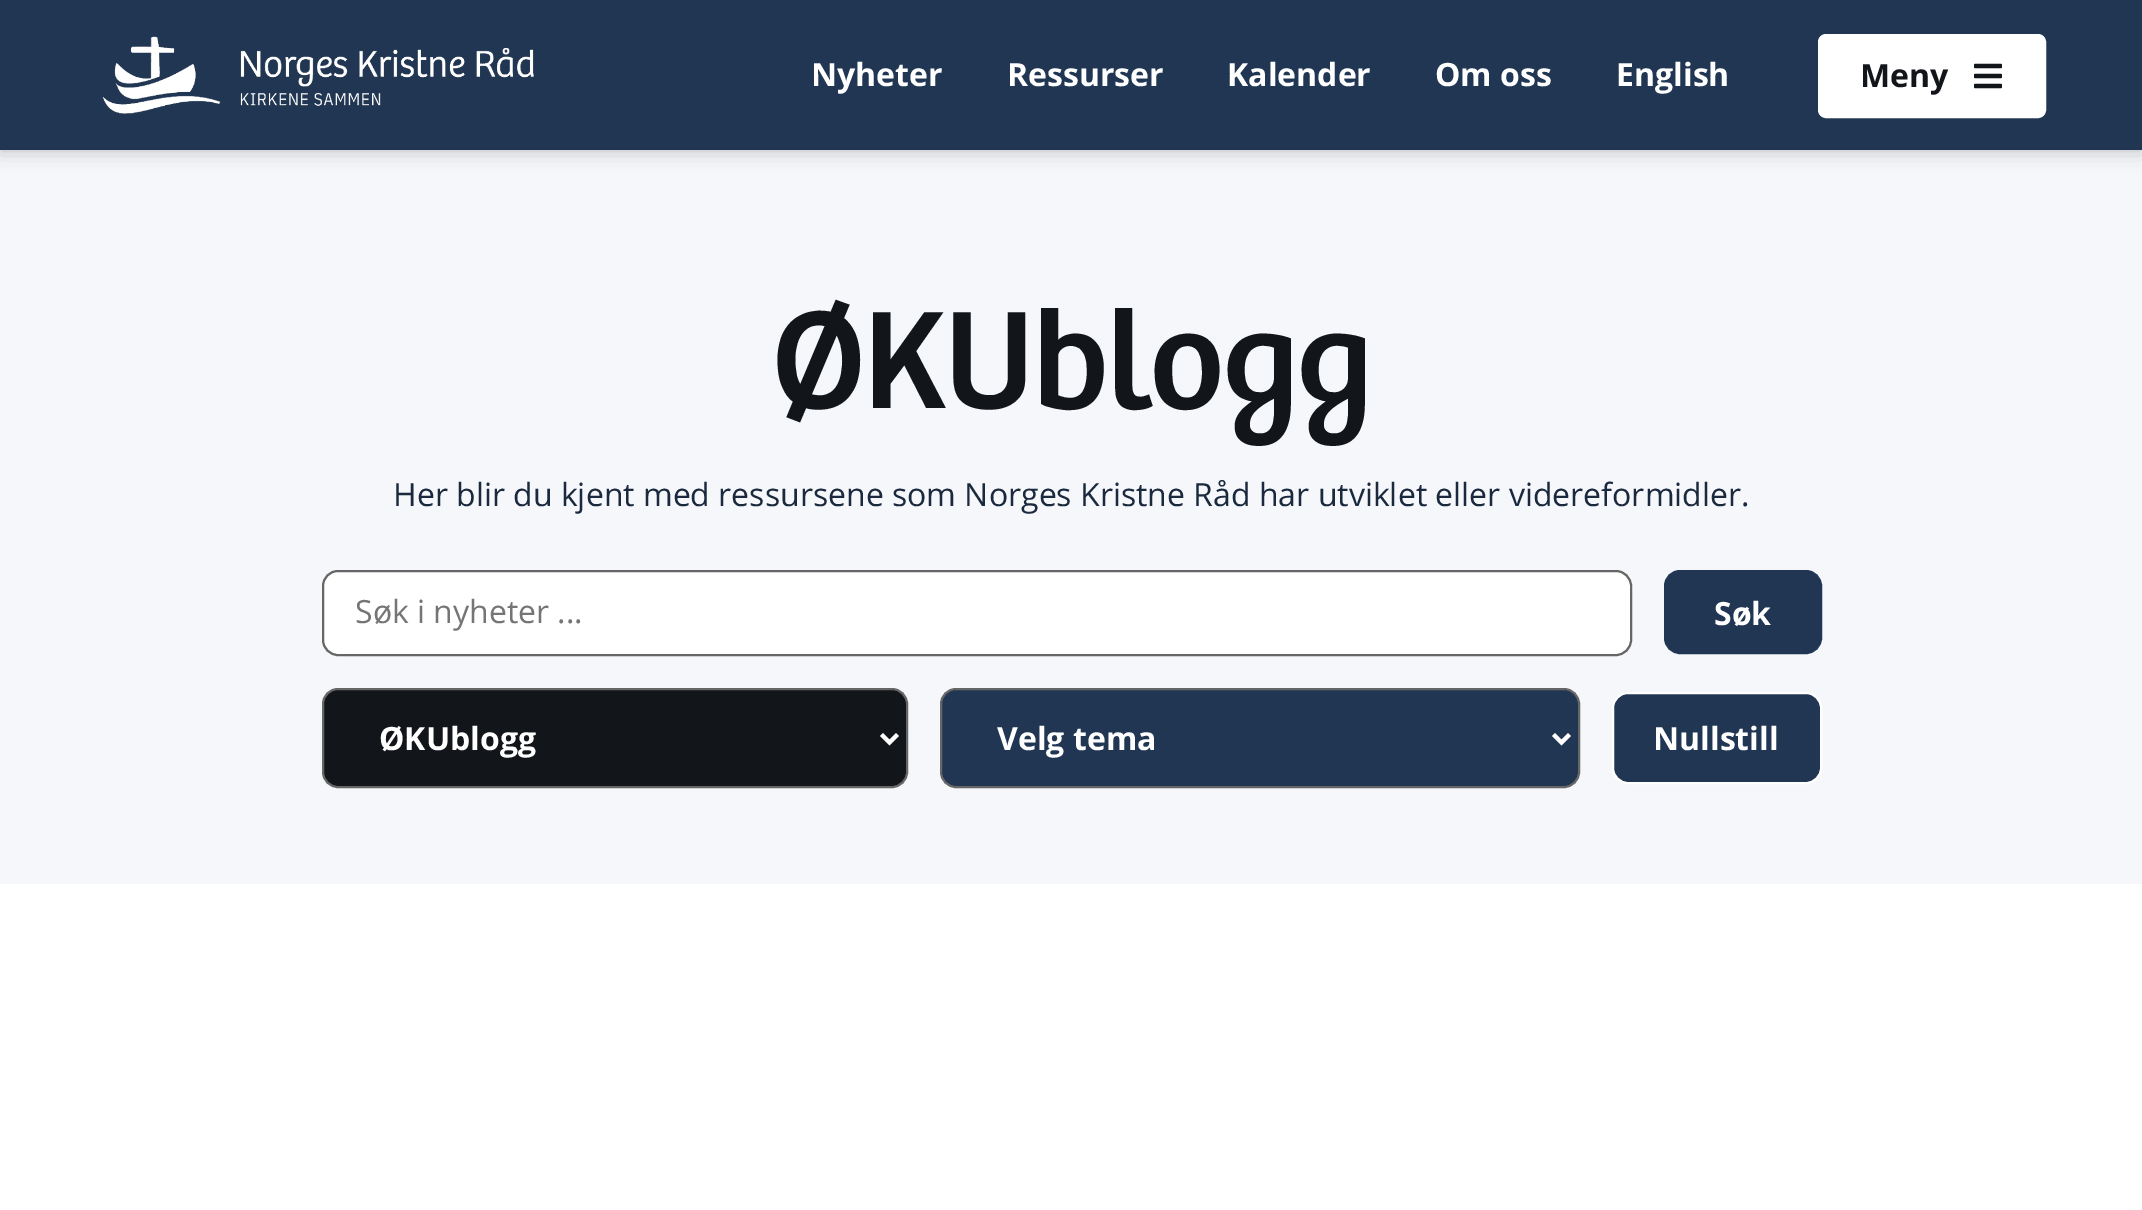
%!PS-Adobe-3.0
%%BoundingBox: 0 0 2142 1210
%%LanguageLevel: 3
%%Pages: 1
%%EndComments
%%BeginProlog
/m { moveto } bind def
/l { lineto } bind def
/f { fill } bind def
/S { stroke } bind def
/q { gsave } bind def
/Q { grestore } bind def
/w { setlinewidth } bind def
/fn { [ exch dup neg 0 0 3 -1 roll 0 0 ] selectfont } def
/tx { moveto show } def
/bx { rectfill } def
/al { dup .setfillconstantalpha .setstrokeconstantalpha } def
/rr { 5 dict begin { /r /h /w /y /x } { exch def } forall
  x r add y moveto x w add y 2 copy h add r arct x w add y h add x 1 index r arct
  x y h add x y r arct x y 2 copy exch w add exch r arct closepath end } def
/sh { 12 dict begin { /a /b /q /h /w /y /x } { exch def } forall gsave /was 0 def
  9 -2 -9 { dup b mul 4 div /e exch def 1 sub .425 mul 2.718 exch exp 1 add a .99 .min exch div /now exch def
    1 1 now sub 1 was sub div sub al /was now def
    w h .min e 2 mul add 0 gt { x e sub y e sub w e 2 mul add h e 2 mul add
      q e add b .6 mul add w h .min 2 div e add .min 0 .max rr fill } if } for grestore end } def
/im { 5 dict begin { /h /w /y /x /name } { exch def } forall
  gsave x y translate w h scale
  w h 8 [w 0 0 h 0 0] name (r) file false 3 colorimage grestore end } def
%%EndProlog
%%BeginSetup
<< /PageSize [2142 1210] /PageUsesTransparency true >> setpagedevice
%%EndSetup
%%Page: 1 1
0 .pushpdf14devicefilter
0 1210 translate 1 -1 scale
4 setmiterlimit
1 setgray
0 0 2142 1210 bx
0.961 0.969 0.98 setrgbcolor
0 150 2142 734 bx
0 setgray
0 0 2142 150 0 10 0.25 sh
0.125 0.212 0.325 setrgbcolor
0 0 2142 150 bx
(image0.raw) 102 36 432 78 im
/OpenSans-Bold 32 fn
1 setgray
(Nyheter) 811 86 tx
(Ressurser) 1007 86 tx
(Kalender) 1227 86 tx
(Om oss) 1435 86 tx
(English) 1616 86 tx
1819 35 226 82 7 rr q f Q
2 w
S
0.071 0.082 0.102 setrgbcolor
(Meny) 1860 87 tx
(image1.raw) 1974 63 28 26 im
/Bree-Regular 144 fn
771 408 m -3.25 0 (ØKUblogg) ashow
/OpenSans-Regular 32 fn
0.102 0.161 0.239 setrgbcolor
(Her blir du kjent med ressursene som Norges Kristne Råd har utviklet eller videreformidler.) 393 506 tx
1 setgray
323 571 1308 84 15 rr q f Q
0.4 setgray
S
0.459 setgray
(Søk i nyheter ...) 355 623 tx
0.125 0.212 0.325 setrgbcolor
1665 571 156 82 15 rr q f Q
S
/OpenSans-Bold 32 fn
1 setgray
(Søk) 1714 625 tx
0.071 0.082 0.102 setrgbcolor
323 689 584 98 15 rr q f Q
0.4 setgray
S
1 setgray
4 w
881.5 734.5 m 889.5 742.5 l 897.5 734.5 l S
(ØKUblogg) 379 750 tx
0.125 0.212 0.325 setrgbcolor
941 689 638 98 15 rr q f Q
0.4 setgray
2 w
S
1 setgray
4 w
1553.5 734.5 m 1561.5 742.5 l 1569.5 734.5 l S
(Velg tema) 997 750 tx
0.125 0.212 0.325 setrgbcolor
1613 693 208 90 15 rr q f Q
1 setgray
2 w
S
(Nullstill) 1653 750 tx
.poppdf14devicefilter showpage
%%EOF
